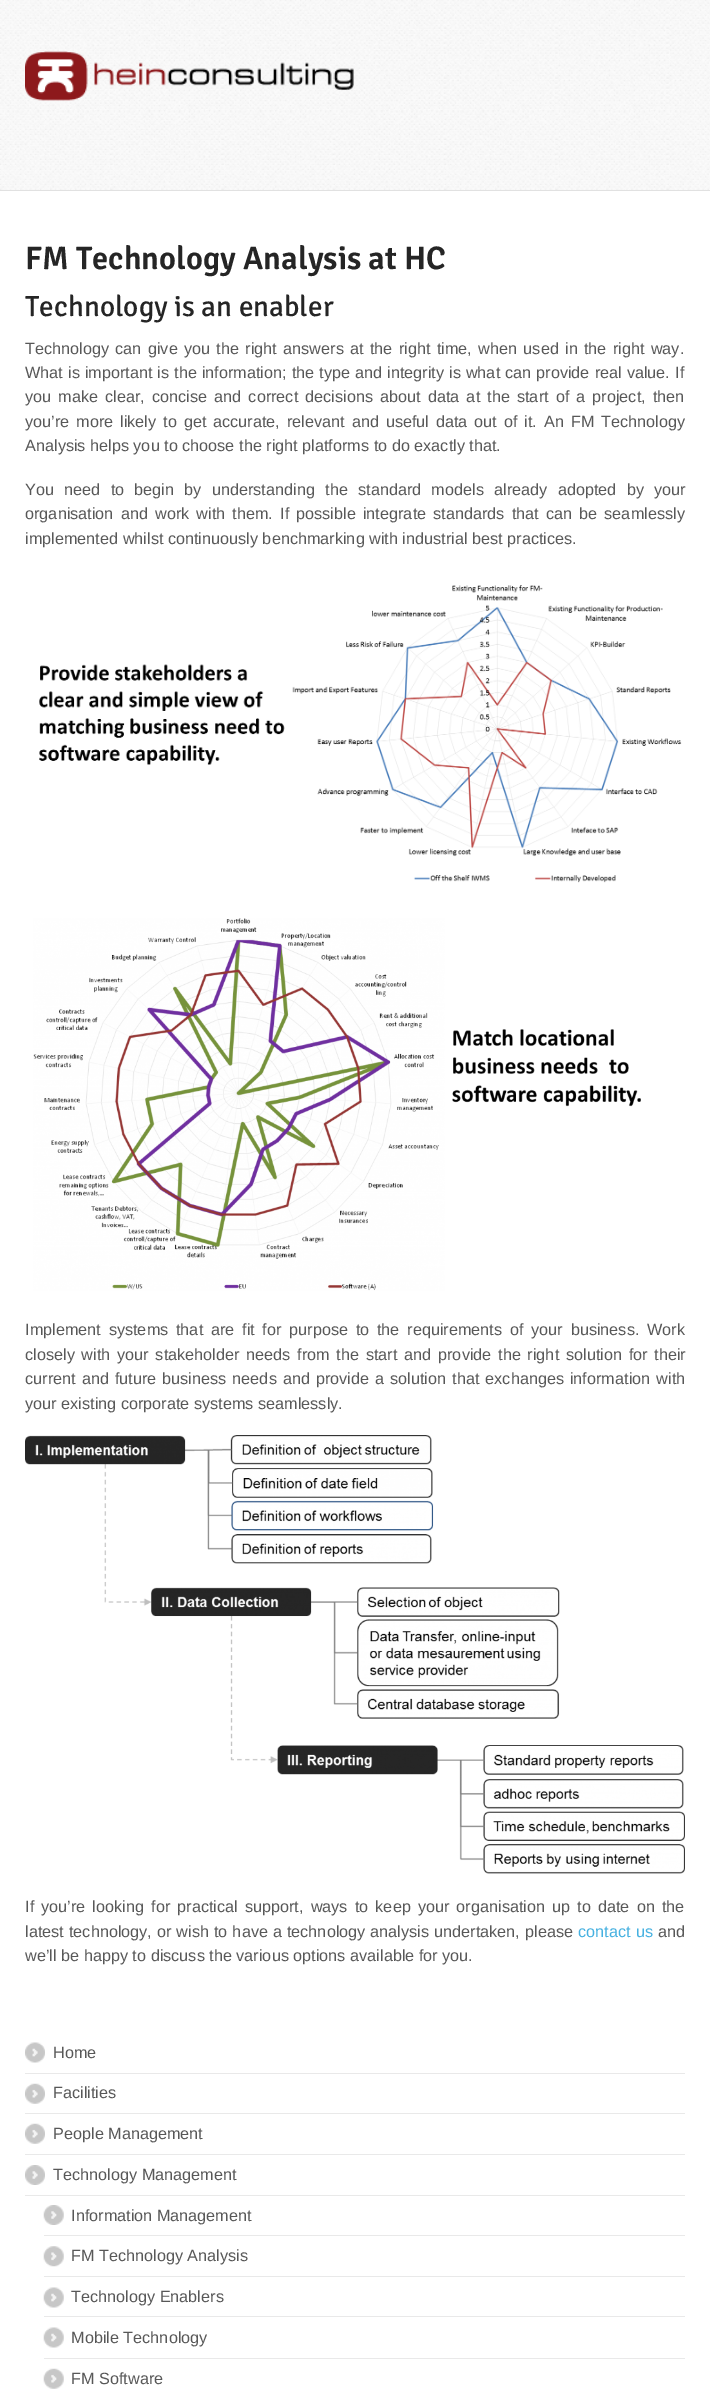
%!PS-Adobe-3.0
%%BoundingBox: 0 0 710 2392
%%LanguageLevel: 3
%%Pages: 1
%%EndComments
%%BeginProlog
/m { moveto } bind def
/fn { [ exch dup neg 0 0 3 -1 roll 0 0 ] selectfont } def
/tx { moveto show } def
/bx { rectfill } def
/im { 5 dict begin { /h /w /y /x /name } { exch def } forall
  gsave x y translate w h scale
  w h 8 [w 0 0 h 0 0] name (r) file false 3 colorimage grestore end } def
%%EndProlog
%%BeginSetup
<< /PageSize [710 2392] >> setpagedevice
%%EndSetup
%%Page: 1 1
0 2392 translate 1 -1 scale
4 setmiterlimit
1 setgray
0 0 710 2392 bx
(image0.raw) 0 0 710 190 im
0.882 setgray
0 190 710 1 bx
(image1.raw) 25 51 329 50 im
/Signika-SemiBold 32.5 fn
0.145 setgray
(FM Technology Analysis at HC) 25 269 tx
/Signika-Regular 29.25 fn
(Technology is an enabler) 25 316 tx
/LiberationSans-Regular 16.25 fn
0.345 setgray
25 354 m 1.8 0 32 (Technology can give you the right answers at the right time, when used in the right way.) widthshow
25 378 m 0.5 0 32 (What is important is the information; the type and integrity is what can provide real value. If) widthshow
25 402 m 2.6 0 32 (you make clear, concise and correct decisions about data at the start of a project, then) widthshow
25 427 m 2.4 0 32 (you’re more likely to get accurate, relevant and useful data out of it. An FM Technology) widthshow
(Analysis helps you to choose the right platforms to do exactly that.) 25 451 tx
25 495 m 5.75 0 32 (You need to begin by understanding the standard models already adopted by your) widthshow
25 519 m 2.6 0 32 (organisation and work with them. If possible integrate standards that can be seamlessly) widthshow
(implemented whilst continuously benchmarking with industrial best practices.) 25 544 tx
(image2.raw) 39 585 643 298 im
(image3.raw) 33 918 608 373 im
25 1335 m 3.25 0 32 (Implement systems that are fit for purpose to the requirements of your business. Work) widthshow
25 1360 m 2.25 0 32 (closely with your stakeholder needs from the start and provide the right solution for their) widthshow
25 1384 m 1.5 0 32 (current and future business needs and provide a solution that exchanges information with) widthshow
(your existing corporate systems seamlessly.) 25 1409 tx
(image4.raw) 25 1435 660 439 im
25 1912 m 2.6 0 32 (If you’re looking for practical support, ways to keep your organisation up to date on the) widthshow
25 1937 m 0.5 0 32 (latest technology, or wish to have a technology analysis undertaken, please) widthshow
0.275 0.694 0.882 setrgbcolor
578 1937 m 1 0 32 (contact us) widthshow
0.345 setgray
(and) 658 1937 tx
(we’ll be happy to discuss the various options available for you.) 25 1961 tx
(image5.raw) 25 2042 20 21 im
0.914 setgray
25 2073 660 1 bx
0.345 setgray
(Home) 53 2058 tx
(image6.raw) 25 2083 20 21 im
0.914 setgray
25 2113 660 1 bx
0.345 setgray
(Facilities) 53 2098 tx
(image6.raw) 25 2123 20 21 im
0.914 setgray
25 2154 660 1 bx
0.345 setgray
(People Management) 53 2139 tx
(image7.raw) 25 2165 20 20 im
0.914 setgray
25 2195 660 1 bx
0.345 setgray
(Technology Management) 53 2180 tx
(image8.raw) 43 2205 21 20 im
0.914 setgray
44 2235 641 1 bx
0.345 setgray
(Information Management) 71 2221 tx
(image9.raw) 43 2246 21 21 im
0.914 setgray
44 2276 641 1 bx
0.345 setgray
(FM Technology Analysis) 71 2261 tx
(image10.raw) 43 2287 21 21 im
0.914 setgray
44 2316 641 1 bx
0.345 setgray
(Technology Enablers) 71 2302 tx
(image10.raw) 43 2327 21 21 im
0.914 setgray
44 2358 641 1 bx
0.345 setgray
(Mobile Technology) 71 2343 tx
(image11.raw) 43 2368 21 21 im
(FM Software) 71 2384 tx
showpage
%%EOF
